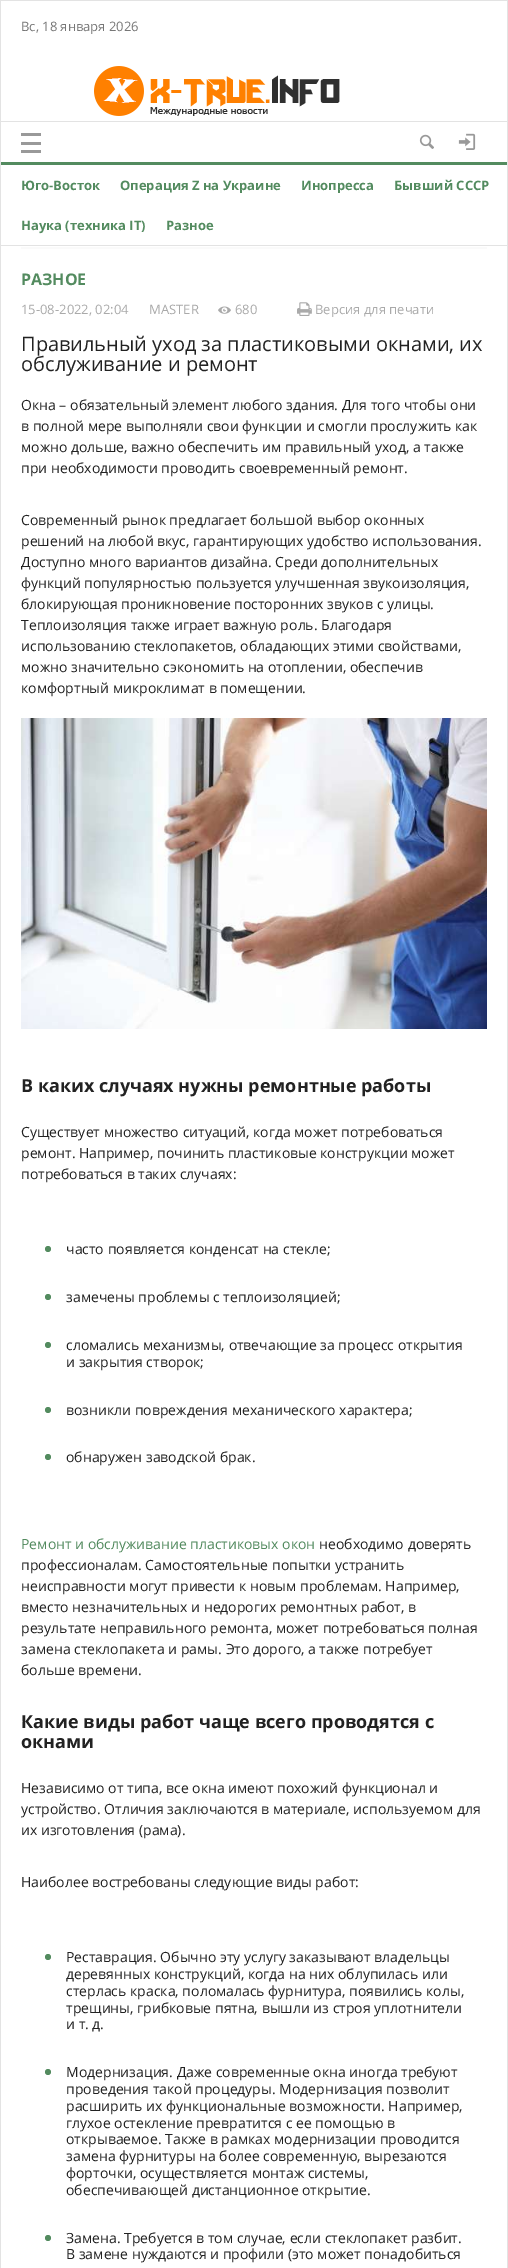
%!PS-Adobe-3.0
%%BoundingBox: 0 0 508 2268
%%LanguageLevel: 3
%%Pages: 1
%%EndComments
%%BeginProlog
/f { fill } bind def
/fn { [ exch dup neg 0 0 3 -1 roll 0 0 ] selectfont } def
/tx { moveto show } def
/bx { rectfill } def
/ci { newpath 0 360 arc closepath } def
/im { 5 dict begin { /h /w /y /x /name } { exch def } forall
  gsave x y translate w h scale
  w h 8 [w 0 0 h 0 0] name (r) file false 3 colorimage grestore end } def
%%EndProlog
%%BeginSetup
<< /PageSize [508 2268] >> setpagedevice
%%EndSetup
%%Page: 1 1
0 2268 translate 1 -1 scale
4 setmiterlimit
1 setgray
0 0 508 2268 bx
0.89 setgray
507 0 1 2268 bx
0 0 1 165 bx
1 0 506 1 bx
/OpenSans-Regular 13 fn
0.467 setgray
(Вс, 18 января 2026) 21 31 tx
(image0.raw) 94 66 246 50 im
0.89 setgray
1 121 506 1 bx
0.325 0.545 0.373 setrgbcolor
1 162 506 3 bx
0.6 setgray
21 133 20 3 bx
21 150 20 3 bx
21 142 20 3 bx
(image1.raw) 419 134 15 15 im
(image2.raw) 458 133 18 17 im
0.89 setgray
0 245 508 1 bx
0 165 1 2103 bx
/OpenSans-Bold 13 fn
0.325 0.545 0.373 setrgbcolor
(Юго-Восток) 21 190 tx
(Операция Z на Украине) 120 190 tx
(Инопресса) 301 190 tx
(Бывший СССР) 394 190 tx
(Наука \(техника IT\)) 21 230 tx
(Разное) 166 230 tx
0.98 setgray
21 247 466 2 bx
/OpenSans-Bold 16 fn
0.325 0.545 0.373 setrgbcolor
(РАЗНОЕ) 21 285 tx
/OpenSans-Regular 13 fn
0.667 setgray
(15-08-2022, 02:04) 21 314 tx
(MASTER) 149 314 tx
(image3.raw) 218 306 13 8 im
(680) 235 314 tx
(image4.raw) 297 302 15 14 im
(Версия для печати) 315 314 tx
/OpenSans-Regular 20 fn
0.133 setgray
(Правильный уход за пластиковыми окнами, их) 21 351 tx
(обслуживание и ремонт) 21 371 tx
/OpenSans-Regular 14 fn
(Окна – обязательный элемент любого здания. Для того чтобы они) 21 410 tx
(в полной мере выполняли свои функции и смогли прослужить как) 21 431 tx
(можно дольше, важно обеспечить им правильный уход, а также) 21 452 tx
(при необходимости проводить своевременный ремонт.) 21 473 tx
(Современный рынок предлагает большой выбор оконных) 21 525 tx
(решений на любой вкус, гарантирующих удобство использования.) 21 546 tx
(Доступно много вариантов дизайна. Среди дополнительных) 21 567 tx
(функций популярностью пользуется улучшенная звукоизоляция,) 21 588 tx
(блокирующая проникновение посторонних звуков с улицы.) 21 609 tx
(Теплоизоляция также играет важную роль. Благодаря) 21 630 tx
(использованию стеклопакетов, обладающих этими свойствами,) 21 651 tx
(можно значительно сэкономить на отоплении, обеспечив) 21 672 tx
(комфортный микроклимат в помещении.) 21 693 tx
(image5.raw) 21 718 466 311 im
/OpenSans-Bold 18 fn
(В каких случаях нужны ремонтные работы) 21 1092 tx
/OpenSans-Regular 14 fn
(Существует множество ситуаций, когда может потребоваться) 21 1137 tx
(ремонт. Например, починить пластиковые конструкции может) 21 1158 tx
(потребоваться в таких случаях:) 21 1179 tx
0.325 0.545 0.373 setrgbcolor
48 1249 3 ci f
0.133 setgray
(часто появляется конденсат на стекле;) 66 1254 tx
0.325 0.545 0.373 setrgbcolor
48 1297 3 ci f
0.133 setgray
(замечены проблемы с теплоизоляцией;) 66 1302 tx
0.325 0.545 0.373 setrgbcolor
48 1345 3 ci f
0.133 setgray
(сломались механизмы, отвечающие за процесс открытия) 66 1350 tx
(и закрытия створок;) 66 1367 tx
0.325 0.545 0.373 setrgbcolor
48 1410 3 ci f
0.133 setgray
(возникли повреждения механического характера;) 66 1415 tx
0.325 0.545 0.373 setrgbcolor
48 1457 3 ci f
0.133 setgray
(обнаружен заводской брак.) 66 1462 tx
0.325 0.545 0.373 setrgbcolor
(Ремонт и обслуживание пластиковых окон) 21 1549 tx
0.133 setgray
(необходимо доверять) 319 1549 tx
(профессионалам. Самостоятельные попытки устранить) 21 1570 tx
(неисправности могут привести к новым проблемам. Например,) 21 1591 tx
(вместо незначительных и недорогих ремонтных работ, в) 21 1612 tx
(результате неправильного ремонта, может потребоваться полная) 21 1633 tx
(замена стеклопакета и рамы. Это дорого, а также потребует) 21 1654 tx
(больше времени.) 21 1675 tx
/OpenSans-Bold 18 fn
(Какие виды работ чаще всего проводятся с) 21 1728 tx
(окнами) 21 1748 tx
/OpenSans-Regular 14 fn
(Независимо от типа, все окна имеют похожий функционал и) 21 1793 tx
(устройство. Отличия заключаются в материале, используемом для) 21 1814 tx
(их изготовления \(рама\).) 21 1835 tx
(Наиболее востребованы следующие виды работ:) 21 1887 tx
0.325 0.545 0.373 setrgbcolor
48 1957 3 ci f
0.133 setgray
(Реставрация. Обычно эту услугу заказывают владельцы) 66 1962 tx
(деревянных конструкций, когда на них облупилась или) 66 1979 tx
(стерлась краска, поломалась фурнитура, появились колы,) 66 1996 tx
(трещины, грибковые пятна, вышли из строя уплотнители) 66 2013 tx
(и т. д.) 66 2029 tx
0.325 0.545 0.373 setrgbcolor
48 2072 3 ci f
0.133 setgray
(Модернизация. Даже современные окна иногда требуют) 66 2077 tx
(проведения такой процедуры. Модернизация позволит) 66 2094 tx
(расширить их функциональные возможности. Например,) 66 2111 tx
(глухое остекление превратится с ее помощью в) 66 2128 tx
(открываемое. Также в рамках модернизации проводится) 66 2144 tx
(замена фурнитуры на более современную, вырезаются) 66 2161 tx
(форточки, осуществляется монтаж системы,) 66 2178 tx
(обеспечивающей дистанционное открытие.) 66 2195 tx
0.325 0.545 0.373 setrgbcolor
48 2238 3 ci f
0.133 setgray
(Замена. Требуется в том случае, если стеклопакет разбит.) 66 2243 tx
(В замене нуждаются и профили \(это может понадобиться) 66 2259 tx
showpage
%%EOF
